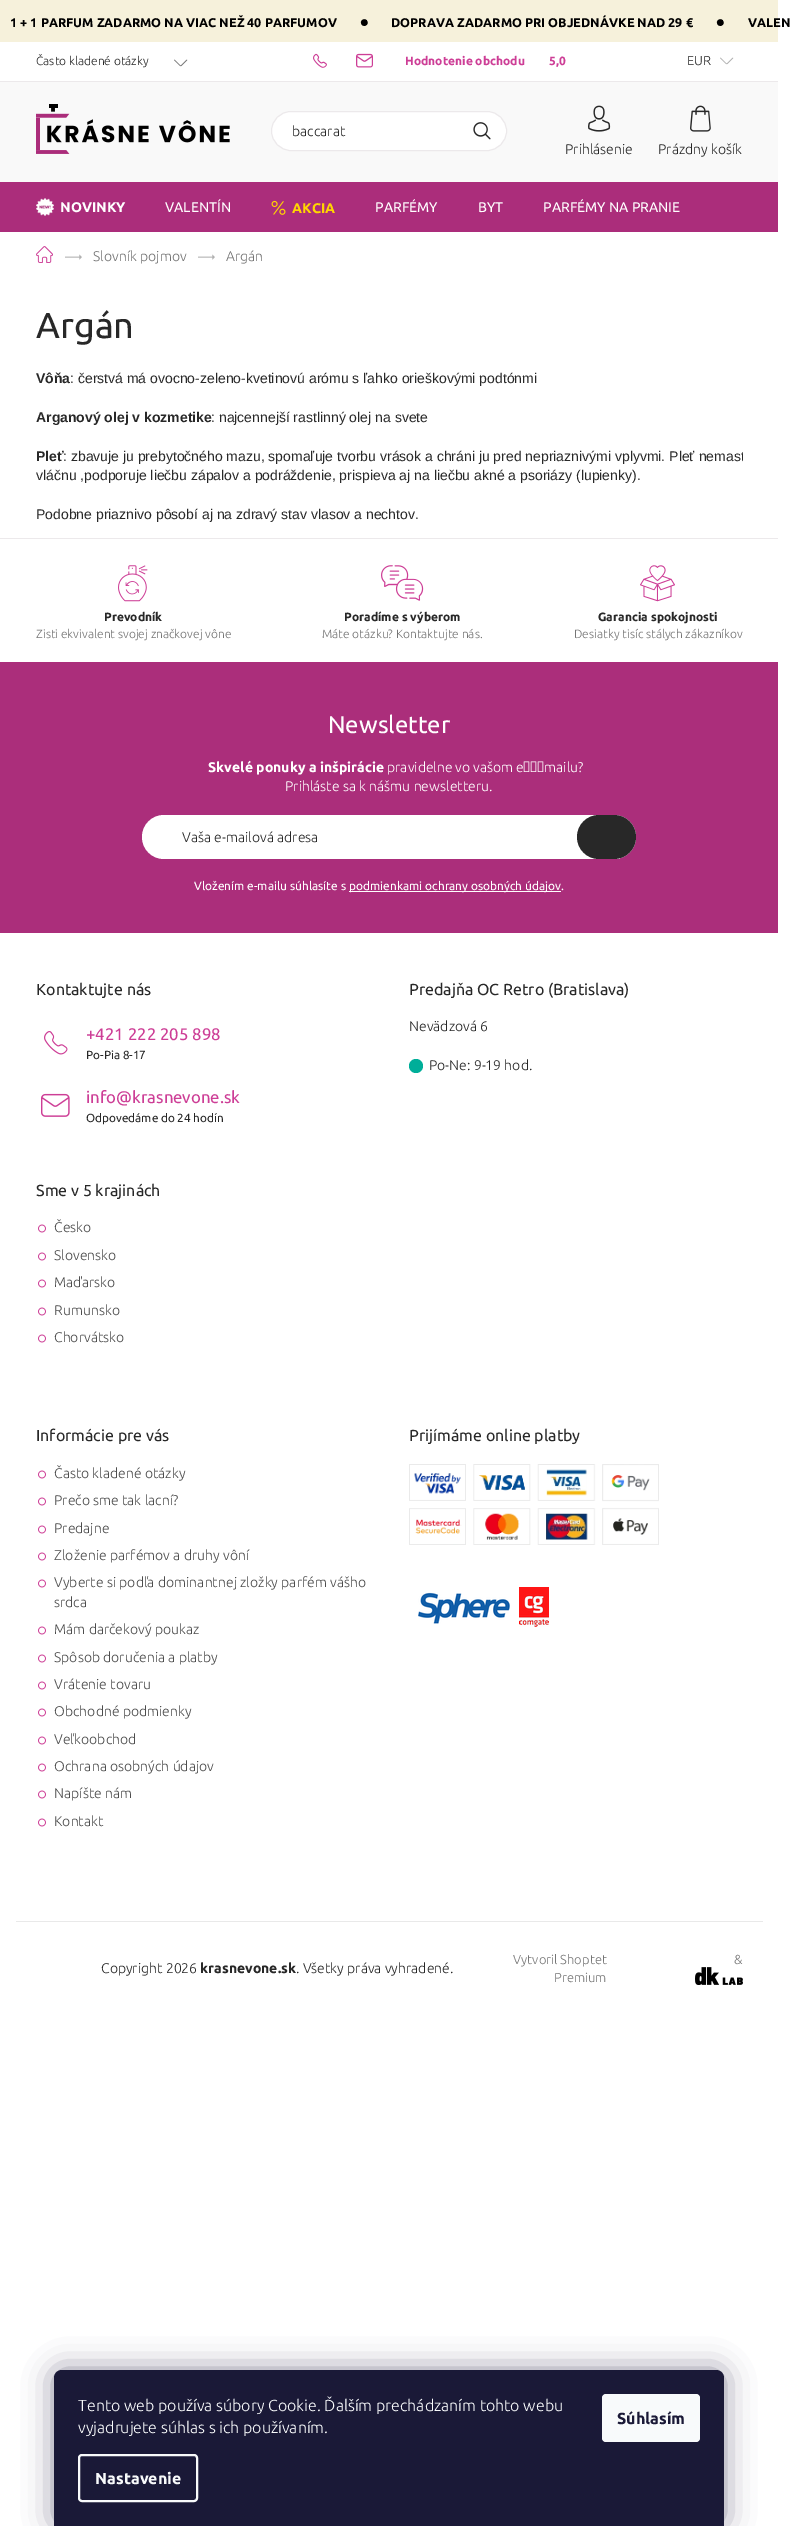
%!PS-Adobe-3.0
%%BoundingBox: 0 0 793 2526
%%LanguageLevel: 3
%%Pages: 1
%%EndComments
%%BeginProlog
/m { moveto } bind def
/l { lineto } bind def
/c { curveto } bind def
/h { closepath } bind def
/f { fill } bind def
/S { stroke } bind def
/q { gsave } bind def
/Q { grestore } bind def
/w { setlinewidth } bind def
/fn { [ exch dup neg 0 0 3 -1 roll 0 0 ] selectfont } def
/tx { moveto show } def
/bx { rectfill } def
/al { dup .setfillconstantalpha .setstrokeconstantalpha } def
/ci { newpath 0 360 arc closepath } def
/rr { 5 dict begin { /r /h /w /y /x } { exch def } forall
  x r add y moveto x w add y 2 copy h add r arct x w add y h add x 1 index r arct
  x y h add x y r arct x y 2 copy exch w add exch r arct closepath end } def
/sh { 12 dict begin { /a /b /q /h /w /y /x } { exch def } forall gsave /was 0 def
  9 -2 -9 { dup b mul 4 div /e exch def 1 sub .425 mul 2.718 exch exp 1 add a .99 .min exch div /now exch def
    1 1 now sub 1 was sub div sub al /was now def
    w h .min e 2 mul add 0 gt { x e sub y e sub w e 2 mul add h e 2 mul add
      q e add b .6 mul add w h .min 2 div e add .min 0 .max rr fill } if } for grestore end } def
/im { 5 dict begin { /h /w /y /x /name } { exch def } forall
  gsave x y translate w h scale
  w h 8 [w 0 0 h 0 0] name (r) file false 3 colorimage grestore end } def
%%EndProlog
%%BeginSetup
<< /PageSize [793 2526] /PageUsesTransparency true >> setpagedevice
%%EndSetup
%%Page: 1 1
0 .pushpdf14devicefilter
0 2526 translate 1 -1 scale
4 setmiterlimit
1 setgray
0 0 793 2526 bx
0.965 0.945 0.859 setrgbcolor
0 0 778 42 bx
/Ubuntu-Bold 12.6 fn
0 setgray
(1 + 1 PARFUM ZADARMO NA VIAC NEŽ 40 PARFUMOV) 10 27 tx
/Ubuntu-Bold 24 fn
(•) 360 31 tx
/Ubuntu-Bold 12.6 fn
(DOPRAVA ZADARMO PRI OBJEDNÁVKE NAD 29 €) 391 27 tx
/Ubuntu-Bold 24 fn
(•) 716 31 tx
/Ubuntu-Bold 12.6 fn
(VALEN) 748 27 tx
0.925 0.914 0.922 setrgbcolor
0 81 778 1 bx
/Ubuntu-Light 12 fn
0.157 setgray
(Často kladené otázky) 36 65 tx
(image0.raw) 174 59 14 8 im
(image1.raw) 313 53 14 15 im
(image2.raw) 356 53 17 15 im
/Ubuntu-Bold 12 fn
0.804 0.243 0.588 setrgbcolor
(Hodnotenie obchodu) 405 65 tx
(5,0) 549 65 tx
/Ubuntu-Light 13 fn
0.157 setgray
(EUR) 687 65 tx
(image3.raw) 720 57 14 8 im
0.976 setgray
0 82 778 100 bx
0.671 0.176 0.482 setrgbcolor
0 182 778 50 bx
(image4.raw) 36 104 194 50 im
1 setgray
271.5 111.5 235 39 19.5 rr q f Q
0.925 0.914 0.922 setrgbcolor
S
/Ubuntu-Light 14 fn
0.157 setgray
(baccarat) 292 136 tx
(image5.raw) 473 122 18 18 im
(image6.raw) 588 105 23 27 im
(Prihlásenie) 565 154 tx
(image7.raw) 690 105 21 27 im
(Prázdny košík) 658 154 tx
(image8.raw) 36 198 18 18 im
/Ubuntu-Bold 14 fn
1 setgray
(NOVINKY) 60 212 tx
/Ubuntu-Regular 14 fn
(VALENTÍN) 165 212 tx
(image9.raw) 271 200 15 15 im
/Ubuntu-Bold 14 fn
1 0.839 0 setrgbcolor
(AKCIA) 292 213 tx
/Ubuntu-Regular 14 fn
1 setgray
(PARFÉMY) 375 212 tx
(BYT) 478 212 tx
(PARFÉMY NA PRANIE) 543 212 tx
(image10.raw) 36 246 17 17 im
(image11.raw) 65 254 17 6 im
/Ubuntu-Light 14 fn
0.459 setgray
(Slovník pojmov) 93 261 tx
(image11.raw) 198 254 17 6 im
(Argán) 226 261 tx
/Ubuntu-Regular 36 fn
0.157 setgray
(Argán) 36 338 tx
/LiberationSans-Bold 14 fn
(Vôňa) 36 383 tx
/LiberationSans-Regular 14 fn
(: čerstvá má ovocno-zeleno-kvetinovú arómu s ľahko orieškovými podtónmi) 70 383 tx
/LiberationSans-Bold 14 fn
(Arganový olej v kozmetike) 36 422 tx
/LiberationSans-Regular 14 fn
(: najcennejší rastlinný olej na svete) 211 422 tx
/LiberationSans-Bold 14 fn
(Pleť) 36 461 tx
q
36 369 707 155 rectclip
/LiberationSans-Regular 14 fn
(: zbavuje ju prebytočného mazu, spomaľuje tvorbu vrások a chráni ju pred nepriaznivými vplyvmi. Pleť nemast) 63 461 tx
Q
/LiberationSans-Regular 14 fn
(vláčnu ,podporuje liečbu zápalov a podráždenie, prispieva aj na liečbu akné a psoriázy \(lupienky\).) 36 480 tx
(Podobne priaznivo pôsobí aj na zdravý stav vlasov a nechtov.) 36 519 tx
0.925 0.914 0.922 setrgbcolor
0 538 778 1 bx
(image12.raw) 118 565 30 37 im
/Ubuntu-Bold 12 fn
0.157 setgray
(Prevodník) 104 621 tx
/Ubuntu-Light 12 fn
0.459 setgray
(Zisti ekvivalent svojej značkovej vône) 36 638 tx
(image13.raw) 381 565 43 36 im
/Ubuntu-Bold 12 fn
0.157 setgray
(Poradíme s výberom) 344 621 tx
/Ubuntu-Light 12 fn
0.459 setgray
(Máte otázku? Kontaktujte nás.) 322 638 tx
(image14.raw) 640 565 35 37 im
/Ubuntu-Bold 12 fn
0.157 setgray
(Garancia spokojnosti) 598 621 tx
/Ubuntu-Light 12 fn
0.459 setgray
(Desiatky tisíc stálych zákazníkov) 574 638 tx
0.671 0.18 0.482 setrgbcolor
0 662 778 271 bx
/Ubuntu-Regular 24 fn
1 setgray
(Newsletter) 328 733 tx
/Ubuntu-Bold 14 fn
(Skvelé ponuky a inšpirácie) 208 772 tx
/Ubuntu-Light 14 fn
387 772 m -0.5 0 32 (pravidelne vo vašom e‑mailu?) widthshow
(Prihláste sa k nášmu newsletteru.) 285 791 tx
142 815 494 44 22 rr f
q
142 815 494 44 22 rr clip newpath
162 829 460 44 22 rr f
Q
0.157 setgray
(Vaša e-mailová adresa) 182 842 tx
577 815 59 44 22 rr f
/Ubuntu-Regular 11.9 fn
1 setgray
(Vložením e-mailu súhlasíte s) 194 890 tx
349 891 212 1 bx
(podmienkami ochrany osobných údajov.) 349 890 tx
/Ubuntu-Regular 16 fn
0.157 setgray
(Kontaktujte nás) 36 995 tx
(image15.raw) 44 1031 24 24 im
/Ubuntu-Regular 16.75 fn
0.804 0.243 0.588 setrgbcolor
(+421 222 205 898) 86 1040 tx
/Ubuntu-Regular 11.75 fn
0.157 setgray
(Po-Pia 8-17) 86 1059 tx
(image16.raw) 41 1093 29 24 im
/Ubuntu-Regular 16.75 fn
0.804 0.243 0.588 setrgbcolor
(info@krasnevone.sk) 86 1103 tx
/Ubuntu-Regular 11.75 fn
0.157 setgray
(Odpovedáme do 24 hodín) 86 1122 tx
/Ubuntu-Regular 16 fn
(Sme v 5 krajinách) 36 1196 tx
(image17.raw) 38 1224 8 9 im
/Ubuntu-Light 14 fn
0.302 setgray
(Česko) 54 1232 tx
(image17.raw) 38 1252 8 9 im
(Slovensko) 54 1260 tx
(image17.raw) 38 1279 8 9 im
(Maďarsko) 54 1287 tx
(image17.raw) 38 1307 8 9 im
(Rumunsko) 54 1315 tx
(image17.raw) 38 1334 8 9 im
(Chorvátsko) 54 1342 tx
/Ubuntu-Regular 16 fn
0.157 setgray
(Predajňa OC Retro \(Bratislava\)) 409 995 tx
/Ubuntu-Light 14 fn
(Nevädzová 6) 409 1031 tx
0 0.682 0.6 setrgbcolor
416 1066 7 ci f
0.157 setgray
(Po-Ne: 9-19 hod.) 429 1070 tx
/Ubuntu-Regular 16 fn
(Informácie pre vás) 36 1441 tx
(image17.raw) 38 1470 8 9 im
/Ubuntu-Light 14 fn
0.302 setgray
(Často kladené otázky) 54 1478 tx
(image17.raw) 38 1497 8 9 im
(Prečo sme tak lacní?) 54 1505 tx
(image17.raw) 38 1525 8 9 im
(Predajne) 54 1533 tx
(image17.raw) 38 1552 8 9 im
(Zloženie parfémov a druhy vôní) 54 1560 tx
(image17.raw) 38 1579 8 9 im
(Vyberte si podľa dominantnej zložky parfém vášho) 54 1587 tx
(srdca) 54 1607 tx
(image17.raw) 38 1626 8 9 im
(Mám darčekový poukaz) 54 1634 tx
(image17.raw) 38 1654 8 9 im
(Spôsob doručenia a platby) 54 1662 tx
(image17.raw) 38 1681 8 9 im
(Vrátenie tovaru) 54 1689 tx
(image17.raw) 38 1708 8 9 im
(Obchodné podmienky) 54 1716 tx
(image17.raw) 38 1736 8 9 im
(Veľkoobchod) 54 1744 tx
(image17.raw) 38 1763 8 9 im
(Ochrana osobných údajov) 54 1771 tx
(image17.raw) 38 1790 8 9 im
(Napíšte nám) 54 1798 tx
(image17.raw) 38 1818 8 9 im
(Kontakt) 54 1826 tx
/Ubuntu-Regular 16 fn
0.157 setgray
(Prijímáme online platby) 409 1441 tx
(image18.raw) 409 1464 250 81 im
(image19.raw) 418 1592 92 32 im
(image20.raw) 519 1587 30 40 im
0.914 setgray
16 1921 747 1 bx
/Ubuntu-Light 14 fn
0.157 setgray
(Copyright 2026) 101 1973 tx
/Ubuntu-Bold 14 fn
(krasnevone.sk) 200 1973 tx
/Ubuntu-Light 14 fn
(. Všetky práva vyhradené.) 296 1973 tx
/Ubuntu-Light 13 fn
0.459 setgray
(Vytvoril Shoptet) 513 1964 tx
(Premium) 554 1982 tx
(&) 734 1964 tx
(image21.raw) 695 1967 48 18 im
0.106 0.098 0.224 setrgbcolor
54 2370 670 156 8 15 0.5 sh
0.102 0.098 0.216 setrgbcolor
62 2370 m 716 2370 l 720.5 2370 724 2373.5 724 2378 c 724 2526 l 54 2526 l 54 2378 l 54 2373.5 57.5 2370 62 2370 c h f
/Ubuntu-Light 16 fn
0.973 0.98 0.984 setrgbcolor
(Tento web používa súbory Cookie. Ďalším prechádzaním tohto webu) 78 2411 tx
(vyjadrujete súhlas s ich používaním.) 78 2433 tx
2 w
79 2455 118 46 3 rr S
/Ubuntu-Bold 16 fn
(Nastavenie) 95 2484 tx
602 2394 98 48 4 rr f
0.102 0.098 0.216 setrgbcolor
(Súhlasím) 617 2424 tx
.poppdf14devicefilter showpage
%%EOF
